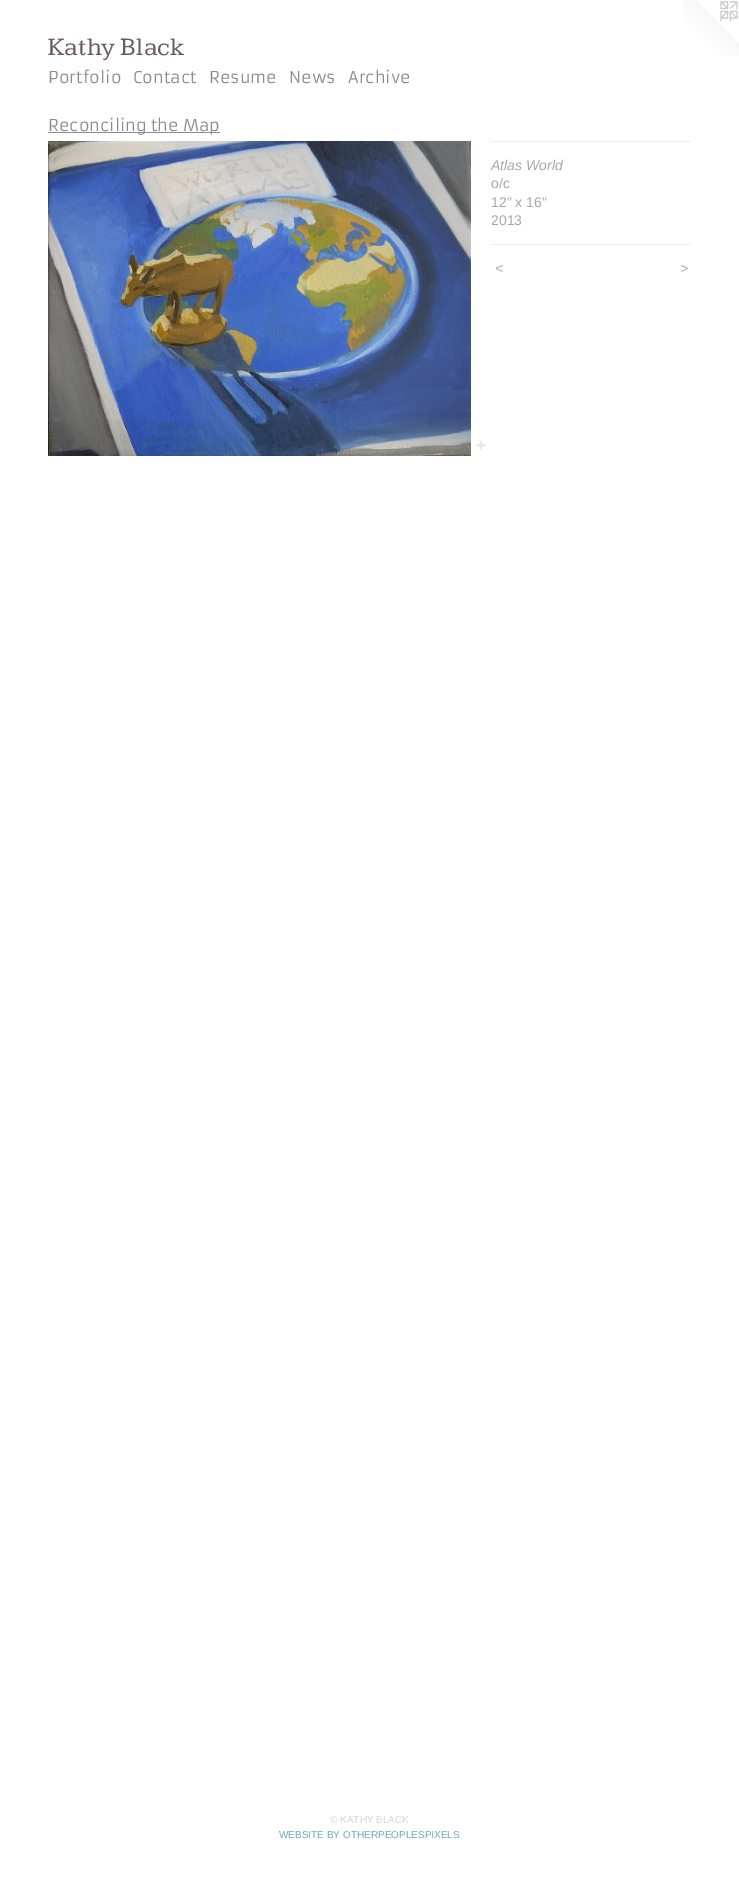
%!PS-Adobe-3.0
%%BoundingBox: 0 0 739 1892
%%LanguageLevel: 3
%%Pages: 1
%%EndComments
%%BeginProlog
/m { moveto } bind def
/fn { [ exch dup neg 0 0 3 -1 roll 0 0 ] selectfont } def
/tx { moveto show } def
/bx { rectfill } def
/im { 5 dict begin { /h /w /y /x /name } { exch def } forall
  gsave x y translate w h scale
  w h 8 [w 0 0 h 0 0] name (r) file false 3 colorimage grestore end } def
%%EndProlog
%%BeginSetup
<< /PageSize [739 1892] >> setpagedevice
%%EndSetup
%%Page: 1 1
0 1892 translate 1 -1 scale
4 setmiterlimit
1 setgray
0 0 739 1892 bx
/Kameron-Regular 26 fn
0.42 0.357 0.376 setrgbcolor
(Kathy Black) 48 55 tx
(image0.raw) 683 0 56 56 im
/Armata-Regular 16 fn
0.549 setgray
(Portfolio) 48 83 tx
(Contact) 133 83 tx
(Resume) 209 83 tx
(News) 289 83 tx
(Archive) 348 83 tx
48 132 172 1 bx
(Reconciling the Map) 48 131 tx
(image1.raw) 48 141 423 315 im
(image2.raw) 476 440 10 10 im
0.933 setgray
491 141 200 1 bx
/LiberationSans-Italic 14 fn
0.659 setgray
(Atlas World) 491 170 tx
/LiberationSans-Regular 14 fn
(o/c) 491 188 tx
(12" x 16") 491 207 tx
(2013) 491 225 tx
0.933 setgray
491 244 200 1 bx
/LiberationSans-Italic 14 fn
0.659 setgray
495 273 m 1 0 (<) ashow
680 273 m 1 0 (>) ashow
/LiberationSans-Regular 10 fn
0.839 setgray
(© KATHY BLACK) 330 1823 tx
0.439 0.659 0.753 setrgbcolor
(WEBSITE BY OTHERPEOPLESPIXELS) 279 1838 tx
showpage
%%EOF
